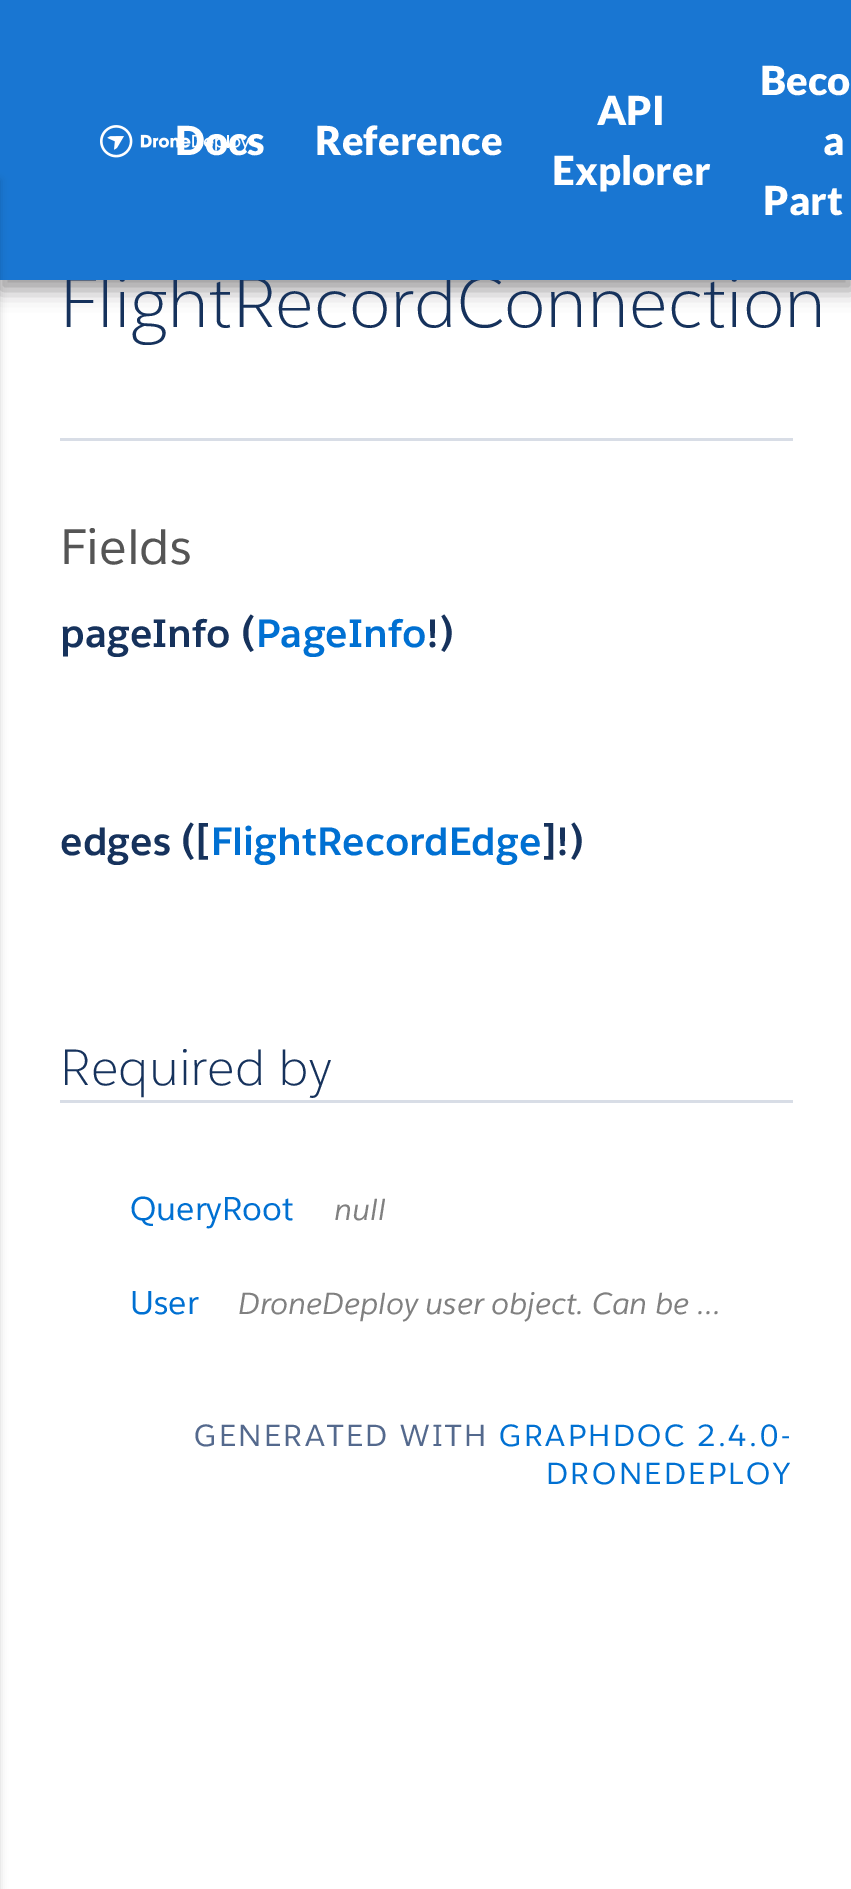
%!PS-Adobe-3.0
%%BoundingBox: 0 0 851 1889
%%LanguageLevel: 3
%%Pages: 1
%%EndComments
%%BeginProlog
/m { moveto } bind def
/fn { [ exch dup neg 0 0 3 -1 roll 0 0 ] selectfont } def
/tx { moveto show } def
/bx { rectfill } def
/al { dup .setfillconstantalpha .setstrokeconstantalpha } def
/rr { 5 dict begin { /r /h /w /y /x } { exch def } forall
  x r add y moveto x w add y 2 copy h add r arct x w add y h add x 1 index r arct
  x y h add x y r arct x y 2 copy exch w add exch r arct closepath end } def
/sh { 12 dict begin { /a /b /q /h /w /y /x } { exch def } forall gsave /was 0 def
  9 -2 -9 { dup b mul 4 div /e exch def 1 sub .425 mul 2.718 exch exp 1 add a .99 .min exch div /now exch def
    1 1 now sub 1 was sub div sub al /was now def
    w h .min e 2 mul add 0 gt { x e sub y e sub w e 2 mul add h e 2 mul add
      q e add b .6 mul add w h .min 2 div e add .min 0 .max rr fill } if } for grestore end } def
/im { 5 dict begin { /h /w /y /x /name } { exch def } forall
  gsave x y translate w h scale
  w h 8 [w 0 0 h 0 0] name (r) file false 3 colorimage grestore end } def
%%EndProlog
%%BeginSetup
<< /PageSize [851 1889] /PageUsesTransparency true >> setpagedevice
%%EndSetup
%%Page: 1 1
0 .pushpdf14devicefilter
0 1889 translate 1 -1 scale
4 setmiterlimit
1 setgray
0 0 851 1889 bx
0.2 0.196 0.2 setrgbcolor
0 10 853 280 0 10 0.5 sh
/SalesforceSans-Light 70 fn
0.086 0.196 0.361 setrgbcolor
(FlightRecordConnection) 60 327 tx
0.098 0.463 0.824 setrgbcolor
0 0 851 280 bx
(image0.raw) 100 125 150 33 im
/Lato-Black 40 fn
1 setgray
(API) 597 125 tx
(Explorer) 552 185 tx
(Beco) 760 95 tx
(a) 823 155 tx
(Part) 763 215 tx
(Docs) 175 155 tx
(Reference) 315 155 tx
0 setgray
-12 180 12 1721 0 4 0.16 sh
0.847 0.867 0.902 setrgbcolor
60 438 733 3 bx
/SalesforceSans-Regular 49 fn
0.333 setgray
(Fields) 60 564 tx
/SalesforceSans-Bold 39 fn
0.086 0.196 0.361 setrgbcolor
(pageInfo \() 60 647 tx
0 0.439 0.824 setrgbcolor
(PageInfo) 256 647 tx
0.086 0.196 0.361 setrgbcolor
(!\)) 426 647 tx
(edges \([) 60 855 tx
0 0.439 0.824 setrgbcolor
(FlightRecordEdge) 211 855 tx
0.086 0.196 0.361 setrgbcolor
(]!\)) 541 855 tx
0.847 0.867 0.902 setrgbcolor
60 1100 733 3 bx
/SalesforceSans-Light 50 fn
0.086 0.196 0.361 setrgbcolor
(Required by) 60 1085 tx
/SalesforceSans-Regular 32.5 fn
0 0.439 0.824 setrgbcolor
(QueryRoot) 130 1220 tx
/SalesforceSans-Italic 30 fn
0.502 setgray
(null) 334 1220 tx
/SalesforceSans-Regular 32.5 fn
0 0.439 0.824 setrgbcolor
(User) 130 1314 tx
/SalesforceSans-Italic 30 fn
0.502 setgray
(DroneDeploy user object. Can be …) 238 1314 tx
/SalesforceSans-Regular 30 fn
0.329 0.412 0.553 setrgbcolor
194 1446 m 2.5 0 (GENERATED WITH) ashow
0 0.439 0.824 setrgbcolor
499 1446 m 2.5 0 (GRAPHDOC 2.4.0-) ashow
546 1484 m 2.5 0 (DRONEDEPLOY) ashow
.poppdf14devicefilter showpage
%%EOF
